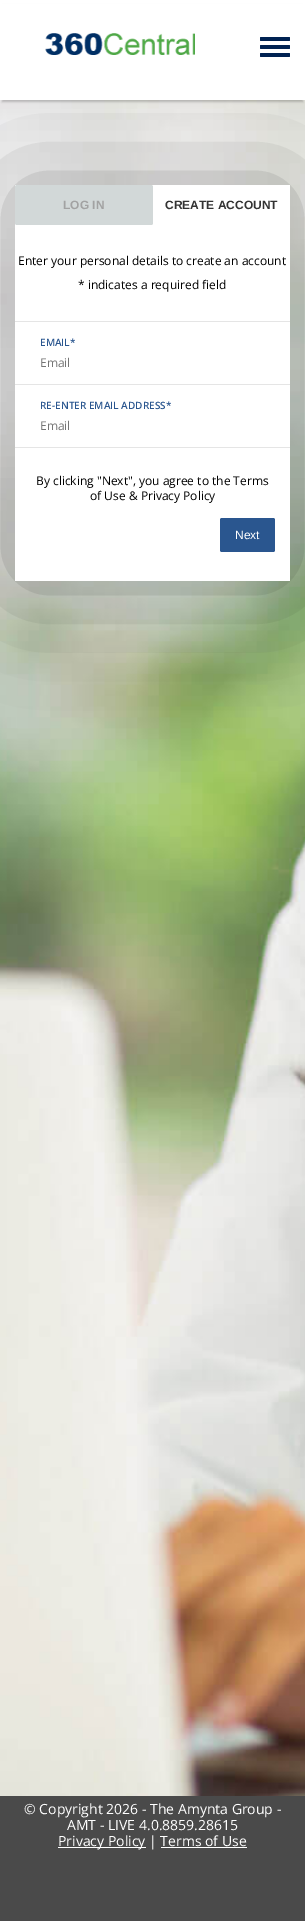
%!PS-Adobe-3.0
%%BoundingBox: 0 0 305 1921
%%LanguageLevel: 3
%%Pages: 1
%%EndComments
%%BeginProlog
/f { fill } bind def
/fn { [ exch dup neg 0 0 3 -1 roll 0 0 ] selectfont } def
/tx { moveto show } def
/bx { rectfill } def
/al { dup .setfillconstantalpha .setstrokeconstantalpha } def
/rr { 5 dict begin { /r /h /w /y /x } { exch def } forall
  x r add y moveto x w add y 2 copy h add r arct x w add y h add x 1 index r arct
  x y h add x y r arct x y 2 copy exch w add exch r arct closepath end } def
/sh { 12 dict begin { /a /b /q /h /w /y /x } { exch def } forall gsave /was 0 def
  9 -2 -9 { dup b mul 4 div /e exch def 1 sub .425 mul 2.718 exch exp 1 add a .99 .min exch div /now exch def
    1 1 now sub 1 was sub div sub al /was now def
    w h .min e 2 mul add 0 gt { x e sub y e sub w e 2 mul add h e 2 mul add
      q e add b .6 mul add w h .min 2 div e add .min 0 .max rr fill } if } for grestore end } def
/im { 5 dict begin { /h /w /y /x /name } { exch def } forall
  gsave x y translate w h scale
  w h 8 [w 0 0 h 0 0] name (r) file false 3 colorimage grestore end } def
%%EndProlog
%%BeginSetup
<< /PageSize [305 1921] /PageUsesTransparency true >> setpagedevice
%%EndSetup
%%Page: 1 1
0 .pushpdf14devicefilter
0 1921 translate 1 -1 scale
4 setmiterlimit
1 setgray
0 0 305 1921 bx
(image0.raw) 0 100 305 1696 im
0 setgray
2 6 301 96 0 1 0.2 sh
15 185 275 396 0 57.5 0.35 sh
1 setgray
0 4 305 96 bx
(image1.raw) 45 33 150 22 im
0 0.133 0.322 setrgbcolor
260 37 30 4 1 rr f
260 45 30 4 1 rr f
260 53 30 4 1 rr f
1 setgray
15 185 275 396 bx
0.824 0.847 0.847 setrgbcolor
15 185 138 40 2 rr f
/LiberationSans-Bold 12 fn
0.635 setgray
(LOG IN) 63 209 tx
0.2 setgray
(CREATE ACCOUNT) 165 209 tx
/OpenSans-Regular 12 fn
0 setgray
(Enter your personal details to create an account) 18 265 tx
(* indicates a required field) 78 289 tx
0.898 setgray
15 321 275 1 bx
/OpenSans-SemiBold 10 fn
0.165 0.337 0.561 setrgbcolor
(EMAIL*) 40 346 tx
/OpenSans-Regular 12 fn
0.459 setgray
(Email) 40 367 tx
0.898 setgray
15 384 275 1 bx
/OpenSans-SemiBold 10 fn
0.165 0.337 0.561 setrgbcolor
(RE-ENTER EMAIL ADDRESS*) 40 409 tx
/OpenSans-Regular 12 fn
0.459 setgray
(Email) 40 430 tx
0.898 setgray
15 447 275 1 bx
0 setgray
(By clicking "Next", you agree to the Terms) 36 485 tx
(of Use & Privacy Policy) 90 500 tx
0.165 0.337 0.561 setrgbcolor
220 518 55 34 2 rr f
/LiberationSans-Regular 12 fn
1 setgray
(Next) 235 539 tx
0.29 setgray
0 1796 305 125 bx
/OpenSans-Regular 14 fn
1 setgray
(© Copyright 2026 - The Amynta Group -) 24 1814 tx
(AMT - LIVE 4.0.8859.28615) 67 1830 tx
58 1847 88 1 bx
(Privacy Policy | Terms of Use) 58 1846 tx
161 1847 86 1 bx
.poppdf14devicefilter showpage
%%EOF
